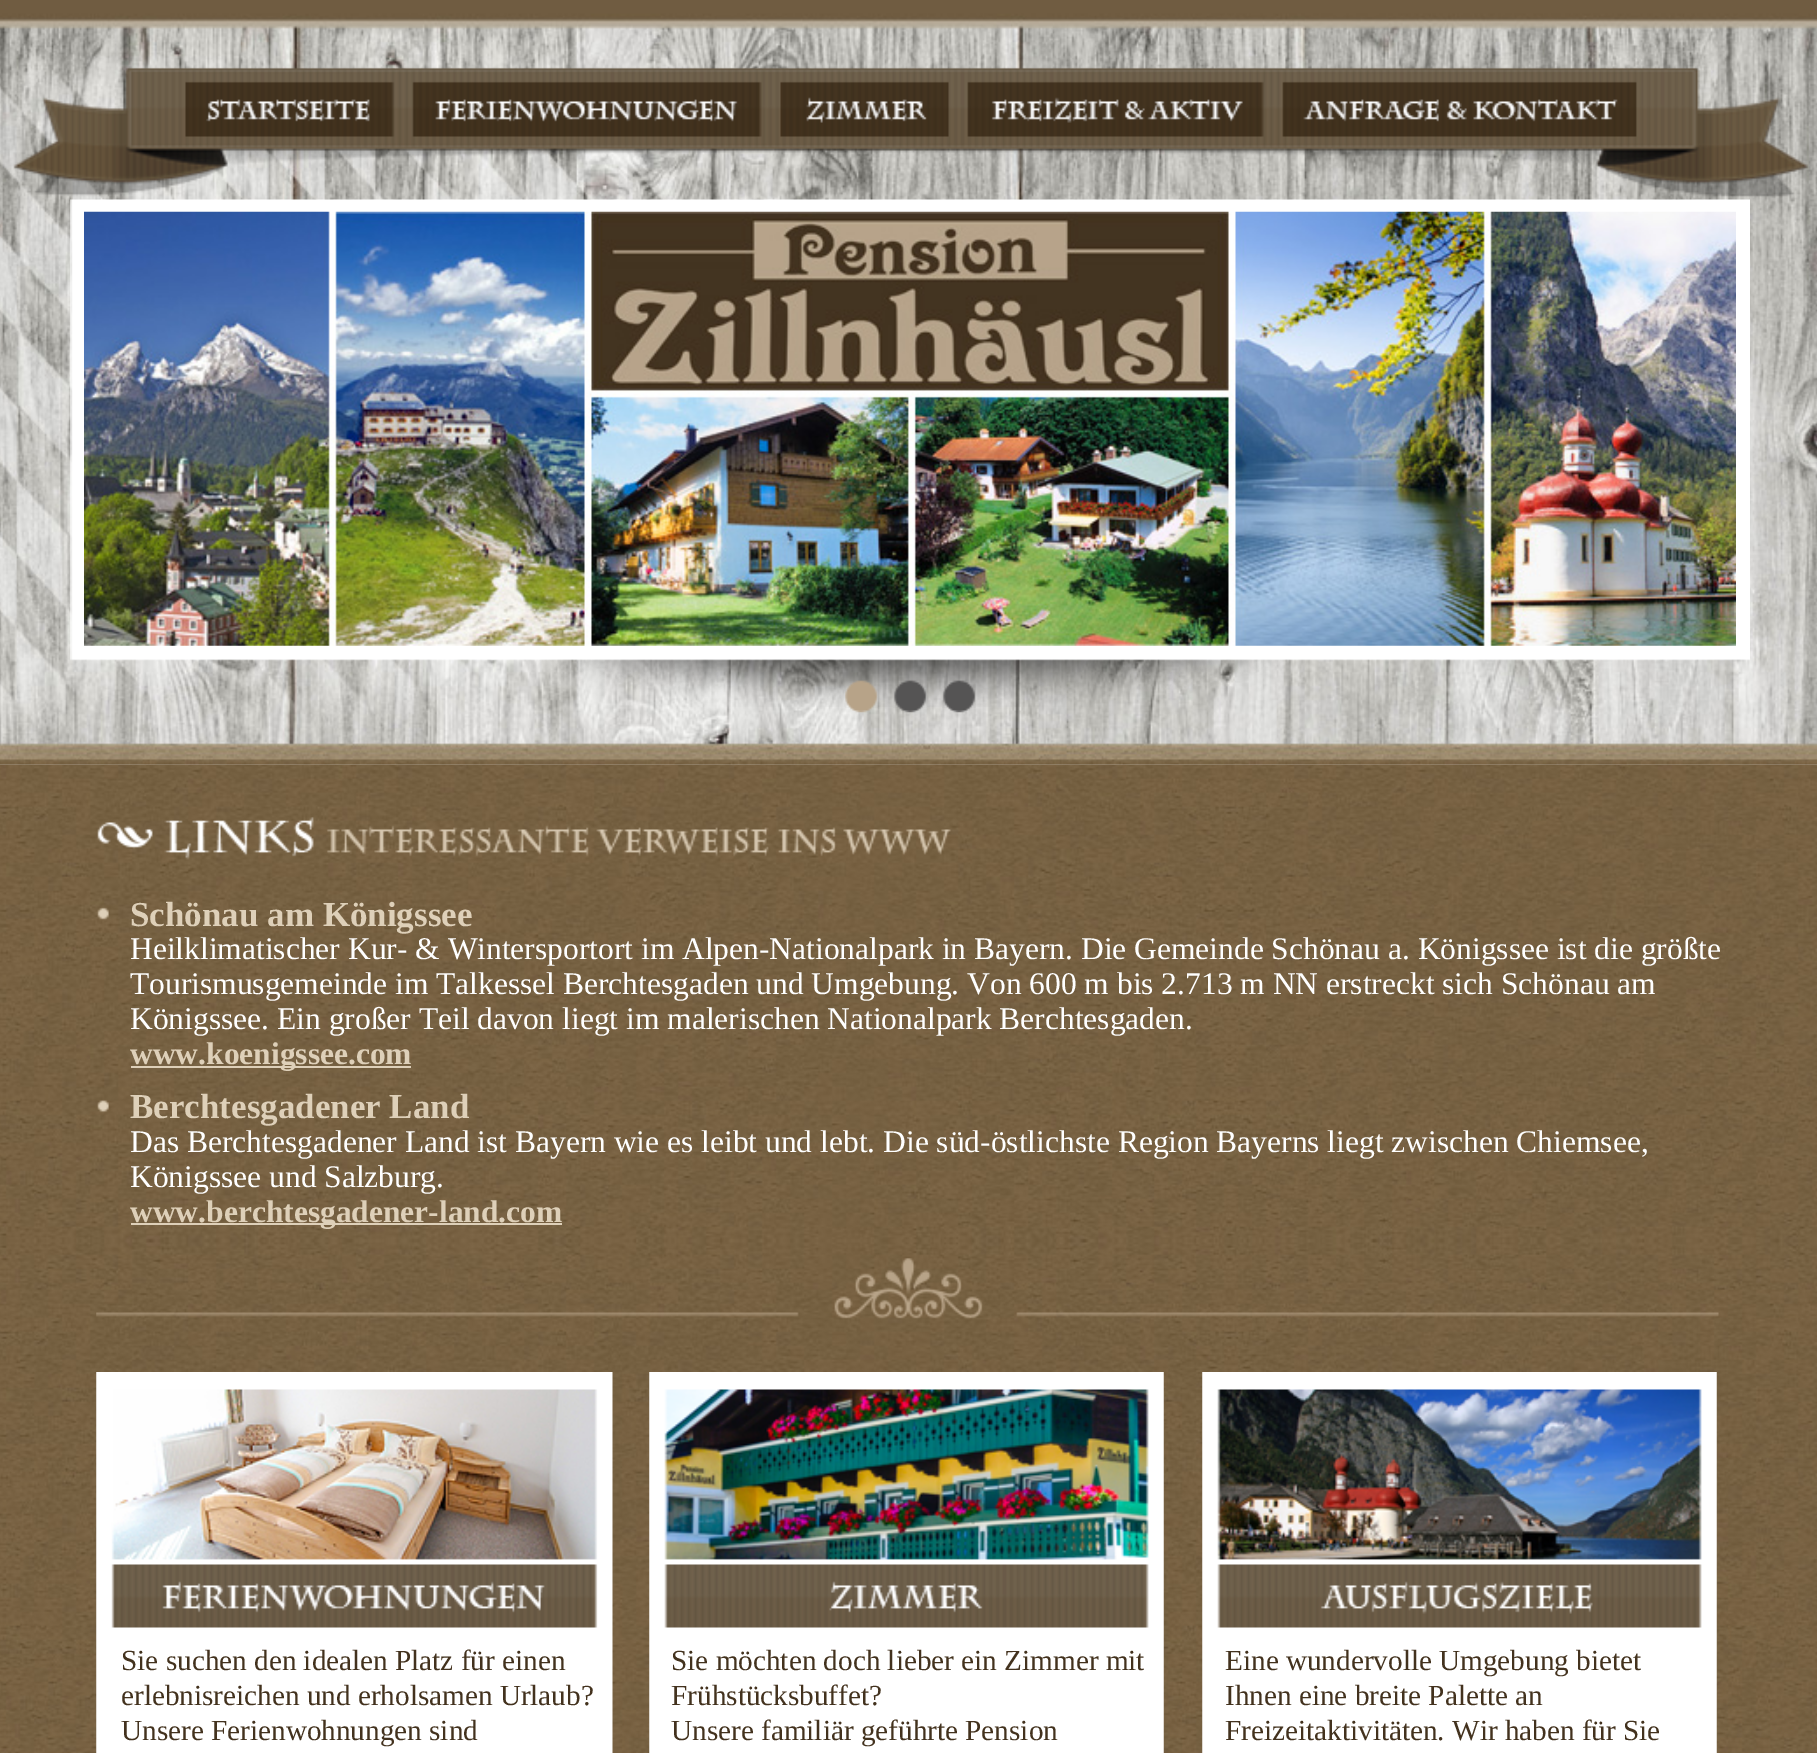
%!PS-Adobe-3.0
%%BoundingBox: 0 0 1817 1753
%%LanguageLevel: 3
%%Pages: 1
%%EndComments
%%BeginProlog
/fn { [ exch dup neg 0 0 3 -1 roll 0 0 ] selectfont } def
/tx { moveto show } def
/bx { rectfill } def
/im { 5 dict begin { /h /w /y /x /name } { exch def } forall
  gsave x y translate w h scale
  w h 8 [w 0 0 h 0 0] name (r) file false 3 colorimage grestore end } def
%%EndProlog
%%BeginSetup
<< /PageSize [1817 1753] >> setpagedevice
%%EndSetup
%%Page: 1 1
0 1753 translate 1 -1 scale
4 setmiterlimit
1 setgray
0 0 1817 1753 bx
(image0.raw) 0 0 1817 765 im
(image1.raw) 13 67 1796 130 im
(image2.raw) 70 199 1680 508 im
(image3.raw) 84 211 1652 435 im
(image4.raw) 845 680 33 33 im
(image5.raw) 893 680 34 33 im
(image6.raw) 942 680 34 33 im
(image7.raw) 0 764 1817 989 im
(image8.raw) 97 817 854 43 im
(image9.raw) 97 907 12 13 im
/LiberationSerif-Bold 35 fn
0.871 0.816 0.725 setrgbcolor
(Schönau am Königssee) 130 926 tx
/LiberationSerif-Regular 31.5 fn
1 setgray
(Heilklimatischer Kur- & Wintersportort im Alpen-Nationalpark in Bayern. Die Gemeinde Schönau a. Königssee ist die größte) 130 959 tx
(Tourismusgemeinde im Talkessel Berchtesgaden und Umgebung. Von 600 m bis 2.713 m NN erstreckt sich Schönau am) 130 994 tx
(Königssee. Ein großer Teil davon liegt im malerischen Nationalpark Berchtesgaden.) 130 1029 tx
0.871 0.816 0.725 setrgbcolor
131 1066 280 2 bx
/LiberationSerif-Bold 31.5 fn
(www.koenigssee.com) 130 1064 tx
(image10.raw) 97 1100 12 12 im
/LiberationSerif-Bold 35 fn
(Berchtesgadener Land) 130 1118 tx
/LiberationSerif-Regular 31.5 fn
1 setgray
(Das Berchtesgadener Land ist Bayern wie es leibt und lebt. Die süd-östlichste Region Bayerns liegt zwischen Chiemsee,) 130 1152 tx
(Königssee und Salzburg.) 130 1187 tx
0.871 0.816 0.725 setrgbcolor
131 1223 431 2 bx
/LiberationSerif-Bold 31.5 fn
(www.berchtesgadener-land.com) 130 1222 tx
(image11.raw) 96 1258 1623 61 im
(image12.raw) 96 1372 517 381 im
/LiberationSerif-Regular 29.2 fn
0.263 0.196 0.118 setrgbcolor
(Sie suchen den idealen Platz für einen) 121 1670 tx
(erlebnisreichen und erholsamen Urlaub?) 121 1705 tx
(Unsere Ferienwohnungen sind) 121 1740 tx
(image13.raw) 649 1372 515 381 im
(Sie möchten doch lieber ein Zimmer mit) 671 1670 tx
(Frühstücksbuffet?) 671 1705 tx
(Unsere familiär geführte Pension) 671 1740 tx
(image14.raw) 1202 1372 515 381 im
(Eine wundervolle Umgebung bietet) 1225 1670 tx
(Ihnen eine breite Palette an) 1225 1705 tx
(Freizeitaktivitäten. Wir haben für Sie) 1225 1740 tx
showpage
%%EOF
